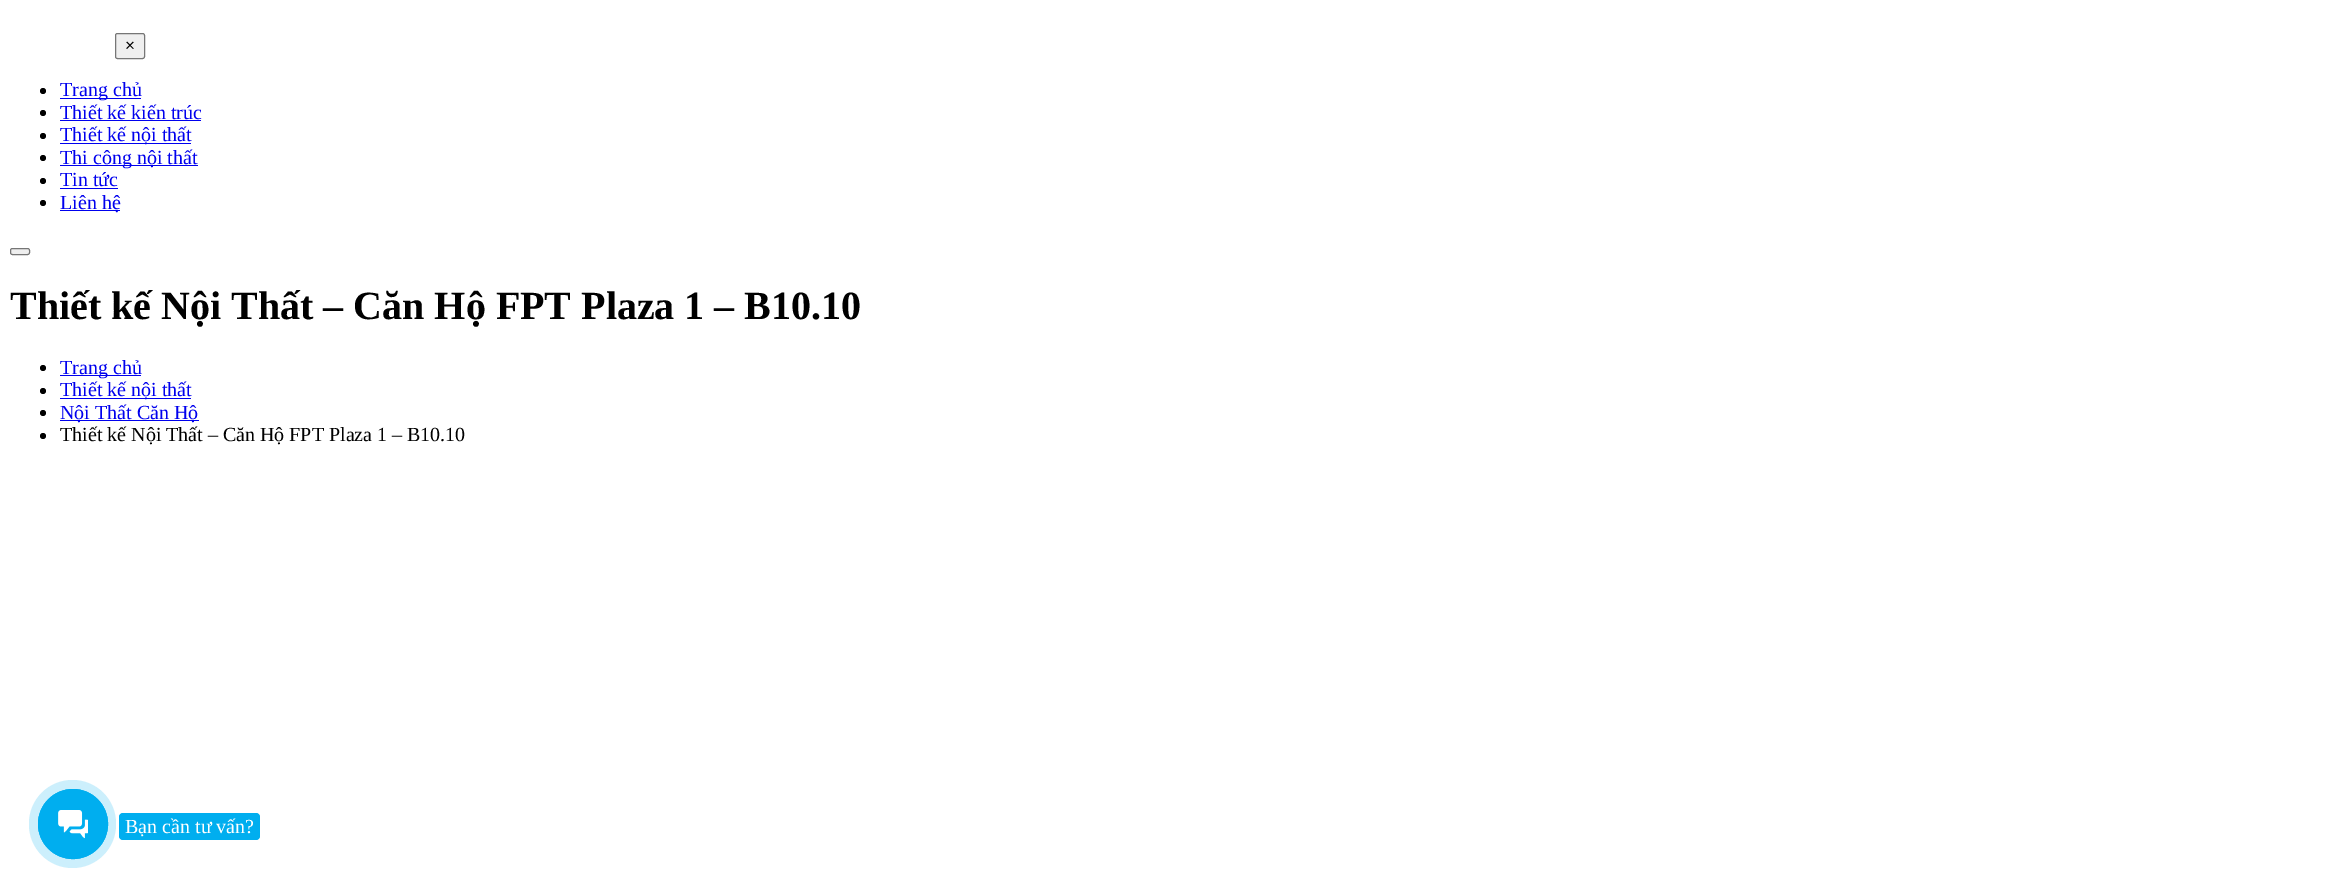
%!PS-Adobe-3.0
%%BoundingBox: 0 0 2331 892
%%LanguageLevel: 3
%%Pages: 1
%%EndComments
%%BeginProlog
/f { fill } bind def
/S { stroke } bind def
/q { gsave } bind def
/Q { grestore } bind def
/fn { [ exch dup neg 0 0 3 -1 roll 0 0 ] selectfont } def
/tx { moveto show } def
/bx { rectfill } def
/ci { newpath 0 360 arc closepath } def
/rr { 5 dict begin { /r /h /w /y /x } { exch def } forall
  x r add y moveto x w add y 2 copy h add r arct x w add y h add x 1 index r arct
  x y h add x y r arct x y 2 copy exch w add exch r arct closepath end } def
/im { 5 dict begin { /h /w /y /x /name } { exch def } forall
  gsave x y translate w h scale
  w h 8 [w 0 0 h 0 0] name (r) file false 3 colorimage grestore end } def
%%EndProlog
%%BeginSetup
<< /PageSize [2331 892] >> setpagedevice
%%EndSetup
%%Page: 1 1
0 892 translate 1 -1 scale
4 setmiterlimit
1 setgray
0 0 2331 892 bx
0.937 setgray
115.5 33.5 29 25 2 rr q f Q
0.463 setgray
S
/LiberationSans-Regular 17 fn
0 setgray
(×) 125 51 tx
43 91 3 ci f
0 0 0.933 setrgbcolor
60 98 81 1 bx
/LiberationSerif-Regular 20 fn
(Trang chủ) 60 96 tx
0 setgray
43 113 3 ci f
0 0 0.933 setrgbcolor
(Thiết kế kiến trúc) 60 119 tx
60 120 141 1 bx
0 setgray
43 136 3 ci f
0 0 0.933 setrgbcolor
60 143 131 1 bx
(Thiết kế nội thất) 60 141 tx
0 setgray
43 158 3 ci f
0 0 0.933 setrgbcolor
60 165 138 1 bx
(Thi công nội thất) 60 164 tx
0 setgray
43 181 3 ci f
0 0 0.933 setrgbcolor
(Tin tức) 60 186 tx
60 188 58 1 bx
0 setgray
43 203 3 ci f
0 0 0.933 setrgbcolor
60 210 60 1 bx
(Liên hệ) 60 209 tx
0.937 setgray
10.5 248.5 19 6 2 rr q f Q
0.463 setgray
S
/LiberationSerif-Bold 40 fn
0 setgray
(Thiết kế Nội Thất – Căn Hộ FPT Plaza 1 – B10.10) 10 319 tx
43 368 3 ci f
0 0 0.933 setrgbcolor
60 375 81 1 bx
/LiberationSerif-Regular 20 fn
(Trang chủ) 60 374 tx
0 setgray
43 391 3 ci f
0 0 0.933 setrgbcolor
60 398 131 1 bx
(Thiết kế nội thất) 60 396 tx
0 setgray
43 413 3 ci f
0 0 0.933 setrgbcolor
60 420 139 1 bx
(Nội Thất Căn Hộ) 60 419 tx
0 setgray
43 436 3 ci f
(Thiết kế Nội Thất – Căn Hộ FPT Plaza 1 – B10.10) 60 441 tx
0.8 0.937 0.988 setrgbcolor
29 780 87 88 43.5 rr f
0 0.682 0.937 setrgbcolor
73 824 34.5 ci S
73 824 35 ci f
(image0.raw) 58 810 30 29 im
119 813 141 27 4 rr f
1 setgray
(Bạn cần tư vấn?) 125 833 tx
showpage
%%EOF
